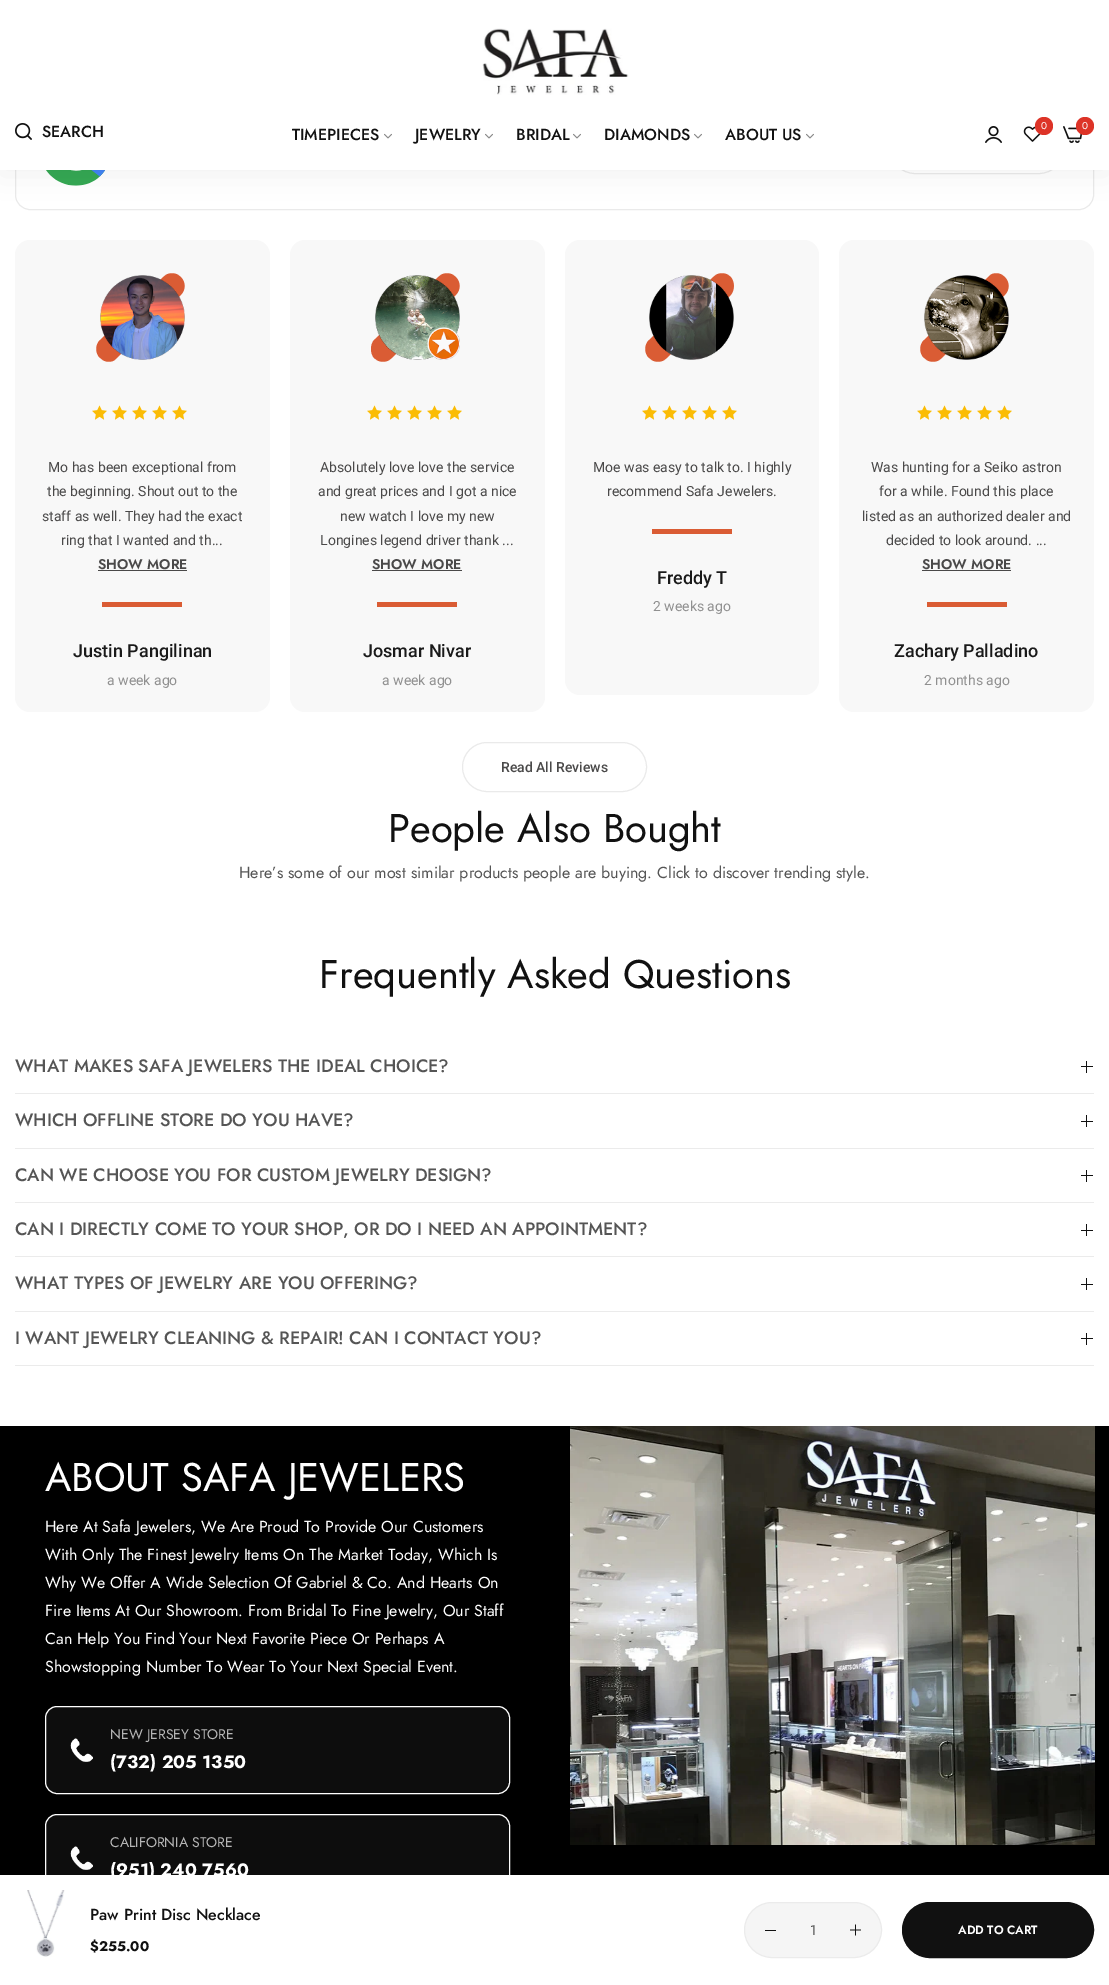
%!PS-Adobe-3.0
%%BoundingBox: 0 0 1109 1985
%%LanguageLevel: 3
%%Pages: 1
%%EndComments
%%BeginProlog
/m { moveto } bind def
/l { lineto } bind def
/c { curveto } bind def
/h { closepath } bind def
/f { fill } bind def
/S { stroke } bind def
/q { gsave } bind def
/Q { grestore } bind def
/w { setlinewidth } bind def
/fn { [ exch dup neg 0 0 3 -1 roll 0 0 ] selectfont } def
/tx { moveto show } def
/bx { rectfill } def
/al { dup .setfillconstantalpha .setstrokeconstantalpha } def
/ci { newpath 0 360 arc closepath } def
/rr { 5 dict begin { /r /h /w /y /x } { exch def } forall
  x r add y moveto x w add y 2 copy h add r arct x w add y h add x 1 index r arct
  x y h add x y r arct x y 2 copy exch w add exch r arct closepath end } def
/sh { 12 dict begin { /a /b /q /h /w /y /x } { exch def } forall gsave /was 0 def
  9 -2 -9 { dup b mul 4 div /e exch def 1 sub .425 mul 2.718 exch exp 1 add a .99 .min exch div /now exch def
    1 1 now sub 1 was sub div sub al /was now def
    w h .min e 2 mul add 0 gt { x e sub y e sub w e 2 mul add h e 2 mul add
      q e add b .6 mul add w h .min 2 div e add .min 0 .max rr fill } if } for grestore end } def
/im { 5 dict begin { /h /w /y /x /name } { exch def } forall
  gsave x y translate w h scale
  w h 8 [w 0 0 h 0 0] name (r) file false 3 colorimage grestore end } def
%%EndProlog
%%BeginSetup
<< /PageSize [1109 1985] /PageUsesTransparency true >> setpagedevice
%%EndSetup
%%Page: 1 1
0 .pushpdf14devicefilter
0 1985 translate 1 -1 scale
4 setmiterlimit
1 setgray
0 0 1109 1985 bx
0.918 setgray
15.5 88.5 1078 121 14.5 rr S
890.5 124.5 173 49 24.5 rr S
(image6.raw) 46 170 59 16 im
0 setgray
0 5 1109 170 0 15 0.05 sh
1 setgray
0 0 1109 170 bx
(image0.raw) 482 28 147 67 im
(image1.raw) 15 123 17 17 im
/Jost-Medium 16 fn
0.067 setgray
(SEARCH) 42 137 tx
(TIMEPIECES) 292 140 tx
(image2.raw) 384 133 8 6 im
(JEWELRY) 415 140 tx
(image2.raw) 485 133 8 6 im
(BRIDAL) 516 140 tx
(image2.raw) 573 133 8 6 im
(DIAMONDS) 604 140 tx
(image2.raw) 694 133 8 6 im
(ABOUT US) 725 140 tx
(image2.raw) 806 133 8 6 im
(image3.raw) 985 126 17 17 im
(image4.raw) 1023 126 18 16 im
0.867 0.2 0.153 setrgbcolor
1044 126 9 ci f
/Jost-Regular 10 fn
1 setgray
(0) 1041 129 tx
(image5.raw) 1063 126 20 17 im
0.867 0.2 0.153 setrgbcolor
1085 126 9 ci f
1 setgray
(0) 1082 129 tx
0.973 setgray
15 240 255 472 15 rr f
0.855 0.361 0.204 setrgbcolor
181 277 m 186 282 186 290 181 295 c 117 358 l 113 363 105 363 100 358 c 95 353 95 345 100 340 c 163 277 l 168 272 176 272 181 277 c h f
(image7.raw) 100 275 85 85 im
(image8.raw) 92 405 95 15 im
/Roboto-Regular 14 fn
0.29 0.286 0.286 setrgbcolor
(Mo has been exceptional from) 48 472 tx
(the beginning. Shout out to the) 47 496 tx
(staff as well. They had the exact) 42 521 tx
(ring that I wanted and th...) 61 545 tx
/Jost-SemiBold 14 fn
(SHOW MORE) 98 569 tx
98 570 89 1 bx
0.855 0.361 0.204 setrgbcolor
102 602 80 5 bx
/Roboto-Medium 18 fn
0.102 setgray
(Justin Pangilinan) 73 657 tx
/Roboto-Regular 14 fn
0.565 setgray
(a week ago) 107 685 tx
0.973 setgray
290 240 255 472 15 rr f
0.855 0.361 0.204 setrgbcolor
456 277 m 461 282 461 290 456 295 c 392 358 l 387 363 379 363 374 358 c 370 353 370 345 374 340 c 438 277 l 443 272 451 272 456 277 c h f
(image9.raw) 375 275 85 85 im
(image8.raw) 367 405 95 15 im
0.29 0.286 0.286 setrgbcolor
(Absolutely love love the service) 320 472 tx
(and great prices and I got a nice) 318 496 tx
(new watch I love my new) 340 521 tx
(Longines legend driver thank ...) 320 545 tx
/Jost-SemiBold 14 fn
(SHOW MORE) 372 569 tx
372 570 90 1 bx
0.855 0.361 0.204 setrgbcolor
377 602 80 5 bx
/Roboto-Medium 18 fn
0.102 setgray
(Josmar Nivar) 363 657 tx
/Roboto-Regular 14 fn
0.565 setgray
(a week ago) 382 685 tx
0.973 setgray
565 240 254 455 15 rr f
0.855 0.361 0.204 setrgbcolor
731 277 m 735 282 735 290 731 295 c 667 358 l 662 363 654 363 649 358 c 644 353 644 345 649 340 c 713 277 l 718 272 726 272 731 277 c h f
(image10.raw) 649 275 85 85 im
(image8.raw) 642 405 95 15 im
0.29 0.286 0.286 setrgbcolor
(Moe was easy to talk to. I highly) 593 472 tx
(recommend Safa Jewelers.) 607 496 tx
0.855 0.361 0.204 setrgbcolor
652 529 80 5 bx
/Roboto-Medium 18 fn
0.102 setgray
(Freddy T) 657 584 tx
/Roboto-Regular 14 fn
0.565 setgray
(2 weeks ago) 653 611 tx
0.973 setgray
839 240 255 472 15 rr f
0.855 0.361 0.204 setrgbcolor
1005 277 m 1010 282 1010 290 1005 295 c 942 358 l 937 363 929 363 924 358 c 919 353 919 345 924 340 c 988 277 l 992 272 1000 272 1005 277 c h f
(image11.raw) 924 275 85 85 im
(image8.raw) 917 405 95 15 im
0.29 0.286 0.286 setrgbcolor
(Was hunting for a Seiko astron) 871 472 tx
(for a while. Found this place) 879 496 tx
(listed as an authorized dealer and) 862 521 tx
(decided to look around. ...) 886 545 tx
/Jost-SemiBold 14 fn
(SHOW MORE) 922 569 tx
922 570 89 1 bx
0.855 0.361 0.204 setrgbcolor
927 602 80 5 bx
/Roboto-Medium 18 fn
0.102 setgray
(Zachary Palladino) 894 657 tx
/Roboto-Regular 14 fn
0.565 setgray
(2 months ago) 924 685 tx
0.918 setgray
462.5 742.5 184 49 24.5 rr S
/Roboto-Medium 14 fn
0.29 0.286 0.286 setrgbcolor
(Read All Reviews) 501 772 tx
/Jost-Regular 40 fn
0.067 setgray
(People Also Bought) 388 842 tx
/Jost-Regular 16 fn
0.333 setgray
(Here’s some of our most similar products people are buying. Click to discover trending style.) 239 878 tx
/Jost-Regular 40 fn
0.067 setgray
(Frequently Asked Questions) 319 988 tx
0.922 setgray
15 1093 1079 1 bx
/Jost-Medium 18 fn
0.333 setgray
(WHAT MAKES SAFA JEWELERS THE IDEAL CHOICE?) 15 1072 tx
0.067 setgray
1086 1061 1 12 bx
1081 1066 12 1 bx
0.922 setgray
15 1148 1079 1 bx
0.333 setgray
(WHICH OFFLINE STORE DO YOU HAVE?) 15 1126 tx
0.067 setgray
1086 1115 1 12 bx
1081 1121 12 1 bx
0.922 setgray
15 1202 1079 1 bx
0.333 setgray
(CAN WE CHOOSE YOU FOR CUSTOM JEWELRY DESIGN?) 15 1181 tx
0.067 setgray
1086 1170 1 12 bx
1081 1175 12 1 bx
0.922 setgray
15 1256 1079 1 bx
0.333 setgray
(CAN I DIRECTLY COME TO YOUR SHOP, OR DO I NEED AN APPOINTMENT?) 15 1235 tx
0.067 setgray
1086 1224 1 12 bx
1081 1230 12 1 bx
0.922 setgray
15 1311 1079 1 bx
0.333 setgray
(WHAT TYPES OF JEWELRY ARE YOU OFFERING?) 15 1289 tx
0.067 setgray
1086 1278 1 12 bx
1081 1284 12 1 bx
0.922 setgray
15 1365 1079 1 bx
0.333 setgray
(I WANT JEWELRY CLEANING & REPAIR! CAN I CONTACT YOU?) 15 1344 tx
0.067 setgray
1086 1333 1 12 bx
1081 1338 12 1 bx
0 setgray
0 1426 1109 449 bx
0.051 setgray
45.5 1814.5 464 87 11.5 rr q f Q
1 setgray
S
(image14.raw) 70 1846 23 24 im
(image15.raw) 570 1426 525 419 im
0 setgray
0 1880 1109 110 0 15 0.08 sh
1 setgray
0 1875 1109 110 bx
(image12.raw) 27 1890 38 67 im
/Jost-Medium 16 fn
0.067 setgray
(Paw Print Disc Necklace) 90 1920 tx
/Jost-Bold 14 fn
($255.00) 90 1951 tx
0.961 setgray
744.5 1902.5 137 55 27.5 rr q f Q
0.922 setgray
S
0.067 setgray
765 1930 11 1 bx
/Jost-Regular 14 fn
0.333 setgray
(1) 810 1935 tx
(image13.raw) 850 1924 11 12 im
0.067 setgray
902.5 1902.5 191 55 27.5 rr q f Q
S
/Jost-SemiBold 12 fn
1 setgray
(ADD TO CART) 958 1934 tx
0.067 setgray
2 w
993 1925 m 995.5 1922.5 1000.5 1922.5 1003 1925 c S
/Jost-Regular 40 fn
1 setgray
(ABOUT SAFA JEWELERS) 45 1491 tx
/Jost-Regular 16 fn
(Here At Safa Jewelers, We Are Proud To Provide Our Customers) 45 1532 tx
(With Only The Finest Jewelry Items On The Market Today, Which Is) 45 1560 tx
(Why We Offer A Wide Selection Of Gabriel & Co. And Hearts On) 45 1588 tx
(Fire Items At Our Showroom. From Bridal To Fine Jewelry, Our Staff) 45 1616 tx
(Can Help You Find Your Next Favorite Piece Or Perhaps A) 45 1644 tx
(Showstopping Number To Wear To Your Next Special Event.) 45 1672 tx
0.051 setgray
45.5 1706.5 464 87 11.5 rr q f Q
1 setgray
1 w
S
(image14.raw) 70 1738 23 24 im
/Jost-Regular 14 fn
0.714 setgray
(NEW JERSEY STORE) 110 1739 tx
/Jost-Bold 18 fn
1 setgray
(\(732\) 205 1350) 110 1768 tx
/Jost-Regular 14 fn
0.714 setgray
(CALIFORNIA STORE) 110 1847 tx
/Jost-Bold 18 fn
1 setgray
(\(951\) 240 7560) 110 1876 tx
.poppdf14devicefilter showpage
%%EOF
